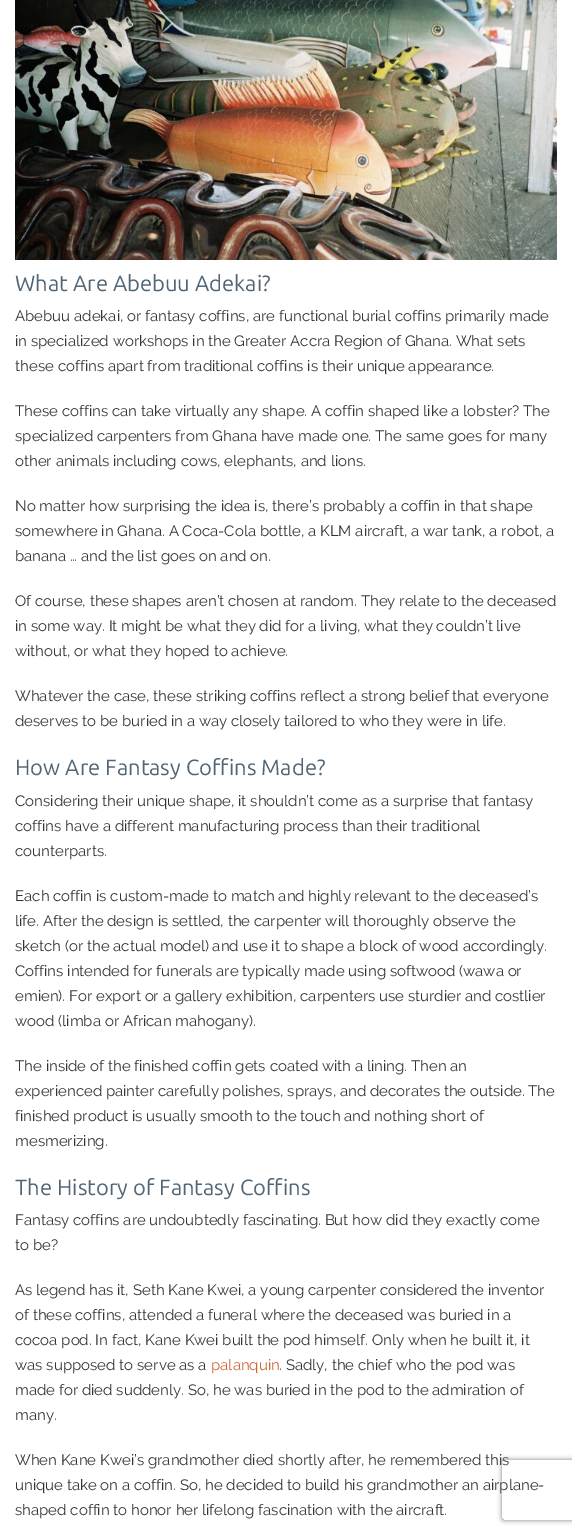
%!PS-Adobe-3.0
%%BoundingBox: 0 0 572 1534
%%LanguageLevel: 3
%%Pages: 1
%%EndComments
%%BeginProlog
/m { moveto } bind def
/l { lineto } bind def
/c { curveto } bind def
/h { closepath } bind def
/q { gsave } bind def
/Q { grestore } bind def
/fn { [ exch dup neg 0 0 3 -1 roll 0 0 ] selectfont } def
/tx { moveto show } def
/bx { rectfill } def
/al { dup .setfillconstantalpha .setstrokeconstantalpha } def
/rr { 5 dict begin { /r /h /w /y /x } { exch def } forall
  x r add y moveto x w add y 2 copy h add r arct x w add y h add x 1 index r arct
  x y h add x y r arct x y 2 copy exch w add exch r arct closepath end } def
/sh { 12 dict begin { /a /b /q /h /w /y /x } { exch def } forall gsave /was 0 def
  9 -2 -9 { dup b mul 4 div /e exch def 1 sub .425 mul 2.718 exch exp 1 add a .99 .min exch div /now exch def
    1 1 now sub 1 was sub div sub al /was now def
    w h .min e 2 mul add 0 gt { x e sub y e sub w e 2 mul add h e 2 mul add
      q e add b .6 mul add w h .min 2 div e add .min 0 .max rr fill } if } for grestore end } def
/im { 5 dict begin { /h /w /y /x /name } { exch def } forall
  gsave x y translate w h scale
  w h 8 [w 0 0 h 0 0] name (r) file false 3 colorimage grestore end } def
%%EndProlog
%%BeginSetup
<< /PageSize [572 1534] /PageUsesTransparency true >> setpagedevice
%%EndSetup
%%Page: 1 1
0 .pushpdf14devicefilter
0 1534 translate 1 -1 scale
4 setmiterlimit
1 setgray
0 0 572 1534 bx
(image0.raw) 15 0 542 260 im
/Ubuntu-Regular 22 fn
0.322 0.396 0.455 setrgbcolor
(What Are Abebuu Adekai?) 15 291 tx
/Raleway-Regular 15 fn
0.2 setgray
(Abebuu adekai, or fantasy coffins, are functional burial coffins primarily made) 15 321 tx
(in specialized workshops in the Greater Accra Region of Ghana. What sets) 15 346 tx
(these coffins apart from traditional coffins is their unique appearance.) 15 371 tx
(These coffins can take virtually any shape. A coffin shaped like a lobster? The) 15 416 tx
(specialized carpenters from Ghana have made one. The same goes for many) 15 441 tx
(other animals including cows, elephants, and lions.) 15 466 tx
(No matter how surprising the idea is, there’s probably a coffin in that shape) 15 511 tx
(somewhere in Ghana. A Coca-Cola bottle, a KLM aircraft, a war tank, a robot, a) 15 536 tx
(banana … and the list goes on and on.) 15 561 tx
(Of course, these shapes aren’t chosen at random. They relate to the deceased) 15 606 tx
(in some way. It might be what they did for a living, what they couldn’t live) 15 631 tx
(without, or what they hoped to achieve.) 15 656 tx
(Whatever the case, these striking coffins reflect a strong belief that everyone) 15 701 tx
(deserves to be buried in a way closely tailored to who they were in life.) 15 726 tx
/Ubuntu-Regular 22 fn
0.322 0.396 0.455 setrgbcolor
(How Are Fantasy Coffins Made?) 15 775 tx
/Raleway-Regular 15 fn
0.2 setgray
(Considering their unique shape, it shouldn’t come as a surprise that fantasy) 15 806 tx
(coffins have a different manufacturing process than their traditional) 15 831 tx
(counterparts.) 15 856 tx
(Each coffin is custom-made to match and highly relevant to the deceased’s) 15 901 tx
(life. After the design is settled, the carpenter will thoroughly observe the) 15 926 tx
(sketch \(or the actual model\) and use it to shape a block of wood accordingly.) 15 951 tx
(Coffins intended for funerals are typically made using softwood \(wawa or) 15 976 tx
(emien\). For export or a gallery exhibition, carpenters use sturdier and costlier) 15 1001 tx
(wood \(limba or African mahogany\).) 15 1026 tx
(The inside of the finished coffin gets coated with a lining. Then an) 15 1071 tx
(experienced painter carefully polishes, sprays, and decorates the outside. The) 15 1096 tx
(finished product is usually smooth to the touch and nothing short of) 15 1121 tx
(mesmerizing.) 15 1146 tx
/Ubuntu-Regular 22 fn
0.322 0.396 0.455 setrgbcolor
(The History of Fantasy Coffins) 15 1195 tx
/Raleway-Regular 15 fn
0.2 setgray
(Fantasy coffins are undoubtedly fascinating. But how did they exactly come) 15 1225 tx
(to be?) 15 1250 tx
(As legend has it, Seth Kane Kwei, a young carpenter considered the inventor) 15 1295 tx
(of these coffins, attended a funeral where the deceased was buried in a) 15 1320 tx
(cocoa pod. In fact, Kane Kwei built the pod himself. Only when he built it, it) 15 1345 tx
(was supposed to serve as a) 15 1370 tx
0.808 0.4 0.196 setrgbcolor
(palanquin) 211 1370 tx
0.2 setgray
(. Sadly, the chief who the pod was) 279 1370 tx
(made for died suddenly. So, he was buried in the pod to the admiration of) 15 1395 tx
(many.) 15 1420 tx
(When Kane Kwei’s grandmother died shortly after, he remembered this) 15 1465 tx
(unique take on a coffin. So, he decided to build his grandmother an airplane-) 15 1490 tx
(shaped coffin to honor her lifelong fascination with the aircraft.) 15 1515 tx
q
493 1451 m 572 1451 l 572 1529 l 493 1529 l h 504 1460 m 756 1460 l 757 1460 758 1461 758 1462 c 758 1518 l 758 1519 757 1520 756 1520 c 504 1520 l 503 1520 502 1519 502 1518 c 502 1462 l 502 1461 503 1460 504 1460 c h eoclip newpath
0.502 setgray
502 1460 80 60 2 2.5 1 sh
Q
.poppdf14devicefilter showpage
%%EOF
